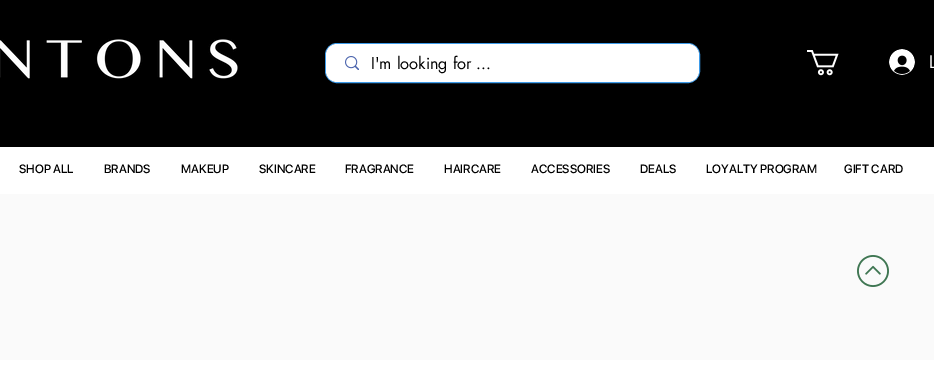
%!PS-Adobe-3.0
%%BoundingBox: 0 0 934 368
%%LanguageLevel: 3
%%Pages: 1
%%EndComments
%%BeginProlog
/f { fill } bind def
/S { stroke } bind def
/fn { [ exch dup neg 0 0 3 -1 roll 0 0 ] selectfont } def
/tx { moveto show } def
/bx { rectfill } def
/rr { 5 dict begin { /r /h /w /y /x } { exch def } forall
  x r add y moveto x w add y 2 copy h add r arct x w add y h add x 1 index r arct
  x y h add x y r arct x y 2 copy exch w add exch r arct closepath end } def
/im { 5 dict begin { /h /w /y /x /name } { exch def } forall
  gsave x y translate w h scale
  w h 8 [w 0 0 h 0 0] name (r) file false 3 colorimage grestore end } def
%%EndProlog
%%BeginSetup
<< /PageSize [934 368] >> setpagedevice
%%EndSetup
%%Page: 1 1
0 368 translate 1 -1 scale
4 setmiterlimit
1 setgray
0 0 934 368 bx
0 setgray
0 0 934 147 bx
(image0.raw) 0 39 238 40 im
0.239 0.608 0.914 setrgbcolor
325.5 43.5 374 39 11.5 rr S
1 setgray
326 44 373 38 11 rr f
(image1.raw) 345 56 14 14 im
/futura-Regular 16 fn
0 setgray
(I'm looking for ...) 371 69 tx
(image2.raw) 807 50 32 26 im
(image3.raw) 889 49 26 26 im
/futura-Regular 17 fn
1 setgray
(L) 929 68 tx
/SFProDisplay-Medium 12 fn
0 setgray
(SHOP ALL) 19 173 tx
(BRANDS) 104 173 tx
(MAKEUP) 181 173 tx
(SKINCARE) 259 173 tx
(FRAGRANCE) 345 173 tx
(HAIRCARE) 444 173 tx
(ACCESSORIES) 531 173 tx
(DEALS) 640 173 tx
(LOYALTY PROGRAM) 706 173 tx
(GIFT CARD) 844 173 tx
0.98 setgray
0 194 934 166 bx
(image4.raw) 857 255 32 32 im
showpage
%%EOF
